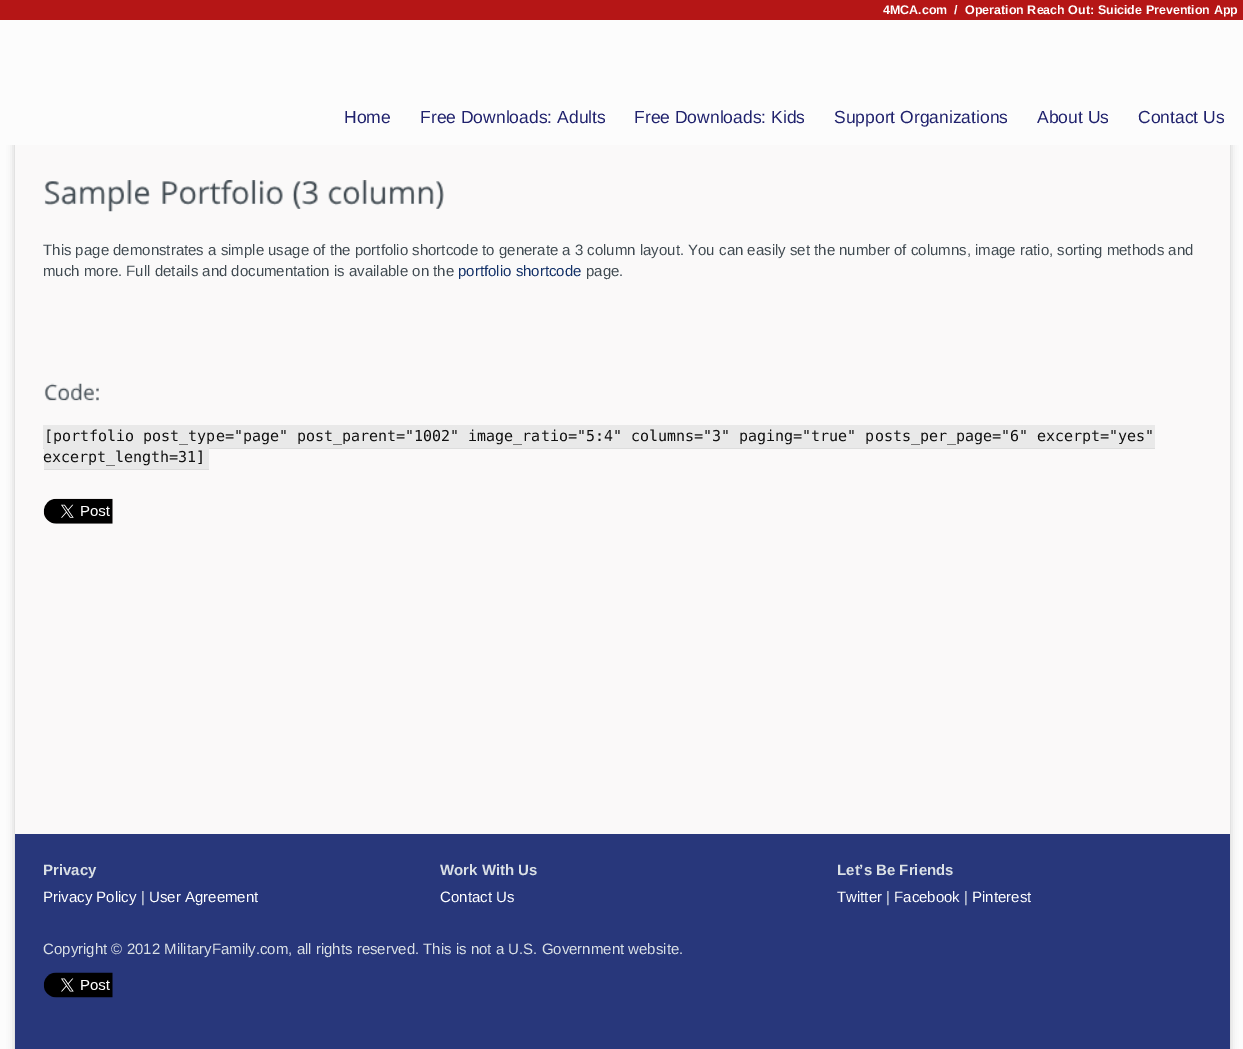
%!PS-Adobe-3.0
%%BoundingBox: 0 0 1243 1049
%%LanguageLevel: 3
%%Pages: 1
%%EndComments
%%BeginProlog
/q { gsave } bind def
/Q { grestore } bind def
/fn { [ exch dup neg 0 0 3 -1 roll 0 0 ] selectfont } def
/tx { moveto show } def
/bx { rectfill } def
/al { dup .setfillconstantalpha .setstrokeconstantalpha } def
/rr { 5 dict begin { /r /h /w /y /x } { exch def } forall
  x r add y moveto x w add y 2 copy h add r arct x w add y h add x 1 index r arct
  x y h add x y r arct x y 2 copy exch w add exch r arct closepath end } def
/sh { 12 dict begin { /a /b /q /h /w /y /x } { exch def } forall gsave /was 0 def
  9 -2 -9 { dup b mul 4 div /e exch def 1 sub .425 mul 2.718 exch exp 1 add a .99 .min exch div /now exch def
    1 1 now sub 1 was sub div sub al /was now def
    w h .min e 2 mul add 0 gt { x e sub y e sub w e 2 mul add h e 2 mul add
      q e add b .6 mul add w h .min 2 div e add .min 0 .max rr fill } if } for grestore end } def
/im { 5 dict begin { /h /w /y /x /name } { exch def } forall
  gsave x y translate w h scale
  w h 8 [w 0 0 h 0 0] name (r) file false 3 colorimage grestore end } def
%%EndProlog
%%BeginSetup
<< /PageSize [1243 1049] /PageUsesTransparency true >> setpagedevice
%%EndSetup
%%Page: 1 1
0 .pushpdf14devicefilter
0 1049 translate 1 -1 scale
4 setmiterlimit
0.988 setgray
0 0 1243 1049 bx
0.71 0.086 0.086 setrgbcolor
0 0 1243 20 bx
/LiberationSans-Bold 12.5 fn
1 setgray
(4MCA.com) 883 14 tx
(/) 954 14 tx
(Operation Reach Out: Suicide Prevention App) 965 14 tx
/LiberationSans-Regular 17.5 fn
0.125 0.133 0.427 setrgbcolor
(Home) 344 123 tx
(Free Downloads: Adults) 420 123 tx
(Free Downloads: Kids) 634 123 tx
q
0 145 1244 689 rectclip
0 setgray
15 139 1215 701 0 4 0.2 sh
Q
(Support Organizations) 834 123 tx
(About Us) 1037 123 tx
(Contact Us) 1138 123 tx
0.98 0.976 0.976 setrgbcolor
15 145 1215 689 bx
(image0.raw) 44 180 106 32 im
(image1.raw) 162 180 121 26 im
(image2.raw) 292 181 26 28 im
(image3.raw) 328 180 116 29 im
/LiberationSans-Regular 15 fn
0.255 0.294 0.322 setrgbcolor
(This page demonstrates a simple usage of the portfolio shortcode to generate a 3 column layout. You can easily set the number of columns, image ratio, sorting methods and) 43 255 tx
(much more. Full details and documentation is available on the) 43 276 tx
0.075 0.192 0.408 setrgbcolor
(portfolio shortcode) 458 276 tx
0.255 0.294 0.322 setrgbcolor
(page.) 586 276 tx
(image4.raw) 44 383 55 18 im
0.914 setgray
43 425 1112 23 bx
/DejaVuSansMono-Regular 15 fn
0.067 setgray
([portfolio post_type="page" post_parent="1002" image_ratio="5:4" columns="3" paging="true" posts_per_page="6" excerpt="yes") 44 441 tx
0.867 setgray
43 448 1112 1 bx
0.914 setgray
44 448 165 21 bx
0.067 setgray
(excerpt_length=31]) 43 462 tx
0.867 setgray
44 469 165 1 bx
(image5.raw) 43 498 70 26 im
q
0 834 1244 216 rectclip
0 setgray
15 828 1215 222 0 4 0.2 sh
Q
0.157 0.216 0.482 setrgbcolor
15 834 1215 215 bx
/LiberationSans-Bold 15 fn
0.855 0.878 0.898 setrgbcolor
(Privacy) 43 875 tx
/LiberationSans-Regular 15 fn
1 setgray
(Privacy Policy) 43 902 tx
0.855 0.878 0.898 setrgbcolor
(|) 141 902 tx
1 setgray
(User Agreement) 149 902 tx
/LiberationSans-Bold 15 fn
0.855 0.878 0.898 setrgbcolor
(Work With Us) 440 875 tx
/LiberationSans-Regular 15 fn
1 setgray
(Contact Us) 440 902 tx
/LiberationSans-Bold 15 fn
0.855 0.878 0.898 setrgbcolor
(Let’s Be Friends) 837 875 tx
/LiberationSans-Regular 15 fn
1 setgray
(Twitter) 837 902 tx
0.855 0.878 0.898 setrgbcolor
(|) 886 902 tx
1 setgray
(Facebook) 894 902 tx
0.855 0.878 0.898 setrgbcolor
(|) 964 902 tx
1 setgray
(Pinterest) 972 902 tx
0.855 0.878 0.898 setrgbcolor
(Copyright © 2012 MilitaryFamily.com, all rights reserved. This is not a U.S. Government website.) 43 954 tx
(image6.raw) 43 972 70 26 im
.poppdf14devicefilter showpage
%%EOF
